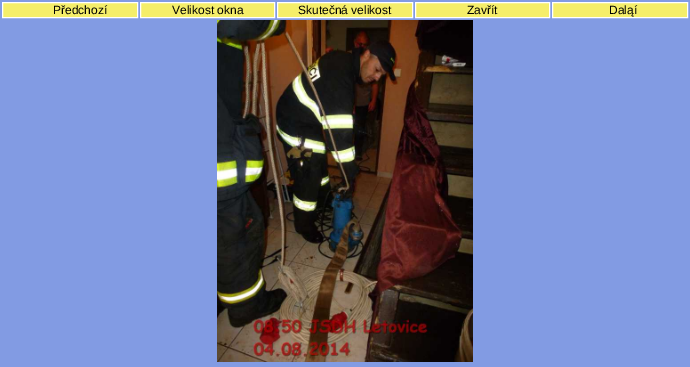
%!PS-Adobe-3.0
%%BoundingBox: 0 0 690 367
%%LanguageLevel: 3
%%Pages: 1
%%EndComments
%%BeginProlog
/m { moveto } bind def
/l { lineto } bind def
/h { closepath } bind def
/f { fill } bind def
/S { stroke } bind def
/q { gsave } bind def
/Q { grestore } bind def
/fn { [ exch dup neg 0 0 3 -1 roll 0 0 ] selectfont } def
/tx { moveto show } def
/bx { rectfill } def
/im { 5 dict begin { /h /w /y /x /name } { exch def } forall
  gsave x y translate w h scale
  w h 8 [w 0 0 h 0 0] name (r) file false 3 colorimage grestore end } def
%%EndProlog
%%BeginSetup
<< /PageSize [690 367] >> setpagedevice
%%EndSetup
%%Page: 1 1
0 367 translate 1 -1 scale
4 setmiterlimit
0.51 0.608 0.89 setrgbcolor
0 0 690 367 bx
0.961 0.933 0.416 setrgbcolor
2.5 2.5 m 137.5 2.5 l 137.5 17.5 l 2.5 17.5 l h q f Q
1 setgray
S
/LiberationSans-Regular 12 fn
0 setgray
(Předchozí) 53 14 tx
0.961 0.933 0.416 setrgbcolor
140.5 2.5 m 274.5 2.5 l 274.5 17.5 l 140.5 17.5 l h q f Q
1 setgray
S
0 setgray
(Velikost okna) 172 14 tx
0.961 0.933 0.416 setrgbcolor
277.5 2.5 m 412.5 2.5 l 412.5 17.5 l 277.5 17.5 l h q f Q
1 setgray
S
0 setgray
(Skutečná velikost) 298 14 tx
0.961 0.933 0.416 setrgbcolor
415.5 2.5 m 549.5 2.5 l 549.5 17.5 l 415.5 17.5 l h q f Q
1 setgray
S
0 setgray
(Zavřít) 467 14 tx
0.961 0.933 0.416 setrgbcolor
552.5 2.5 m 687.5 2.5 l 687.5 17.5 l 552.5 17.5 l h q f Q
1 setgray
S
0 setgray
(Daląí) 609 14 tx
(image0.raw) 217 20 256 342 im
showpage
%%EOF
